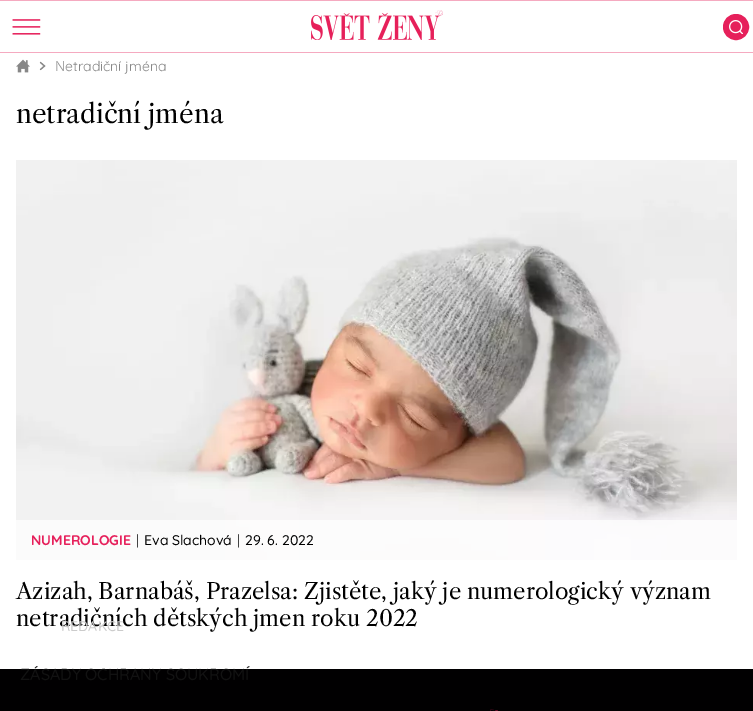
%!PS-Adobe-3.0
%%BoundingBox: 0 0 753 711
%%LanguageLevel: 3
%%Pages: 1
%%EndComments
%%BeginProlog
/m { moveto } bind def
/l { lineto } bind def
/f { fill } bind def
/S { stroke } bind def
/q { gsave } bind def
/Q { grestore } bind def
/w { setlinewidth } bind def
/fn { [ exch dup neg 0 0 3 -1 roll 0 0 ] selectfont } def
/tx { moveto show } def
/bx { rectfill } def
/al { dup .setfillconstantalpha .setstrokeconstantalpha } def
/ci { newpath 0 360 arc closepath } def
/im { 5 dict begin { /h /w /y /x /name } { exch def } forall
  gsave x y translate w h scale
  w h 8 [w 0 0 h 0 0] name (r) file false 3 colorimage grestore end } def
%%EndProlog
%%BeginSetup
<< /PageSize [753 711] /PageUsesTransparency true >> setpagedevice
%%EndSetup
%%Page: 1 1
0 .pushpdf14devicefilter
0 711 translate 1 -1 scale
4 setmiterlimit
1 setgray
0 0 753 711 bx
(image0.raw) 16 59 14 14 im
0.529 setgray
1.2 w
1 setlinecap
40.5 69.5 m 44.5 66 l 40.5 62.5 l S
/NotoSans-Light 14 fn
(N) 55 71 tx
/Quicksand-Regular 14 fn
(etradiční jména) 65 71 tx
/LibreCaslonText-Regular 26 fn
0 setgray
(netradiční jména) 16 123 tx
(image1.raw) 16 160 721 400 im
0.7 al
1 setgray
16 520 721 40 bx
/Quicksand-Bold 14 fn
1 al
0.902 0.125 0.357 setrgbcolor
(NUMEROLOGIE) 31 545 tx
/Quicksand-Regular 14 fn
0 setgray
(|) 136 545 tx
/Quicksand-Medium 14 fn
(Eva Slachová) 144 545 tx
/Quicksand-Regular 14 fn
(|) 237 545 tx
/Quicksand-Medium 14 fn
(29. 6. 2022) 245 545 tx
/LibreCaslonText-Regular 22 fn
(Azizah, Barnabáš, Prazelsa: Zjistěte, jaký je numerologický význam) 16 599 tx
(netradičních dětských jmen roku 2022) 16 626 tx
0.961 0.667 0.753 setrgbcolor
0 0 753 1 bx
(image2.raw) 12 19 29 16 im
(image3.raw) 311 10 132 30 im
0.902 0.125 0.357 setrgbcolor
736 27 12.5 ci q f Q
1 w
0 setlinecap
S
(image4.raw) 729 20 14 14 im
0.961 0.667 0.753 setrgbcolor
0 52 753 1 bx
/Quicksand-Medium 14 fn
0.796 setgray
(REDAKCE) 61 631 tx
0.004 0 0.004 setrgbcolor
0 669 753 42 bx
/Quicksand-Medium 16 fn
0.071 setgray
(ZÁSADY OCHRANY SOUKROMÍ) 20 680 tx
(image5.raw) 490 709 8 2 im
.poppdf14devicefilter showpage
%%EOF
